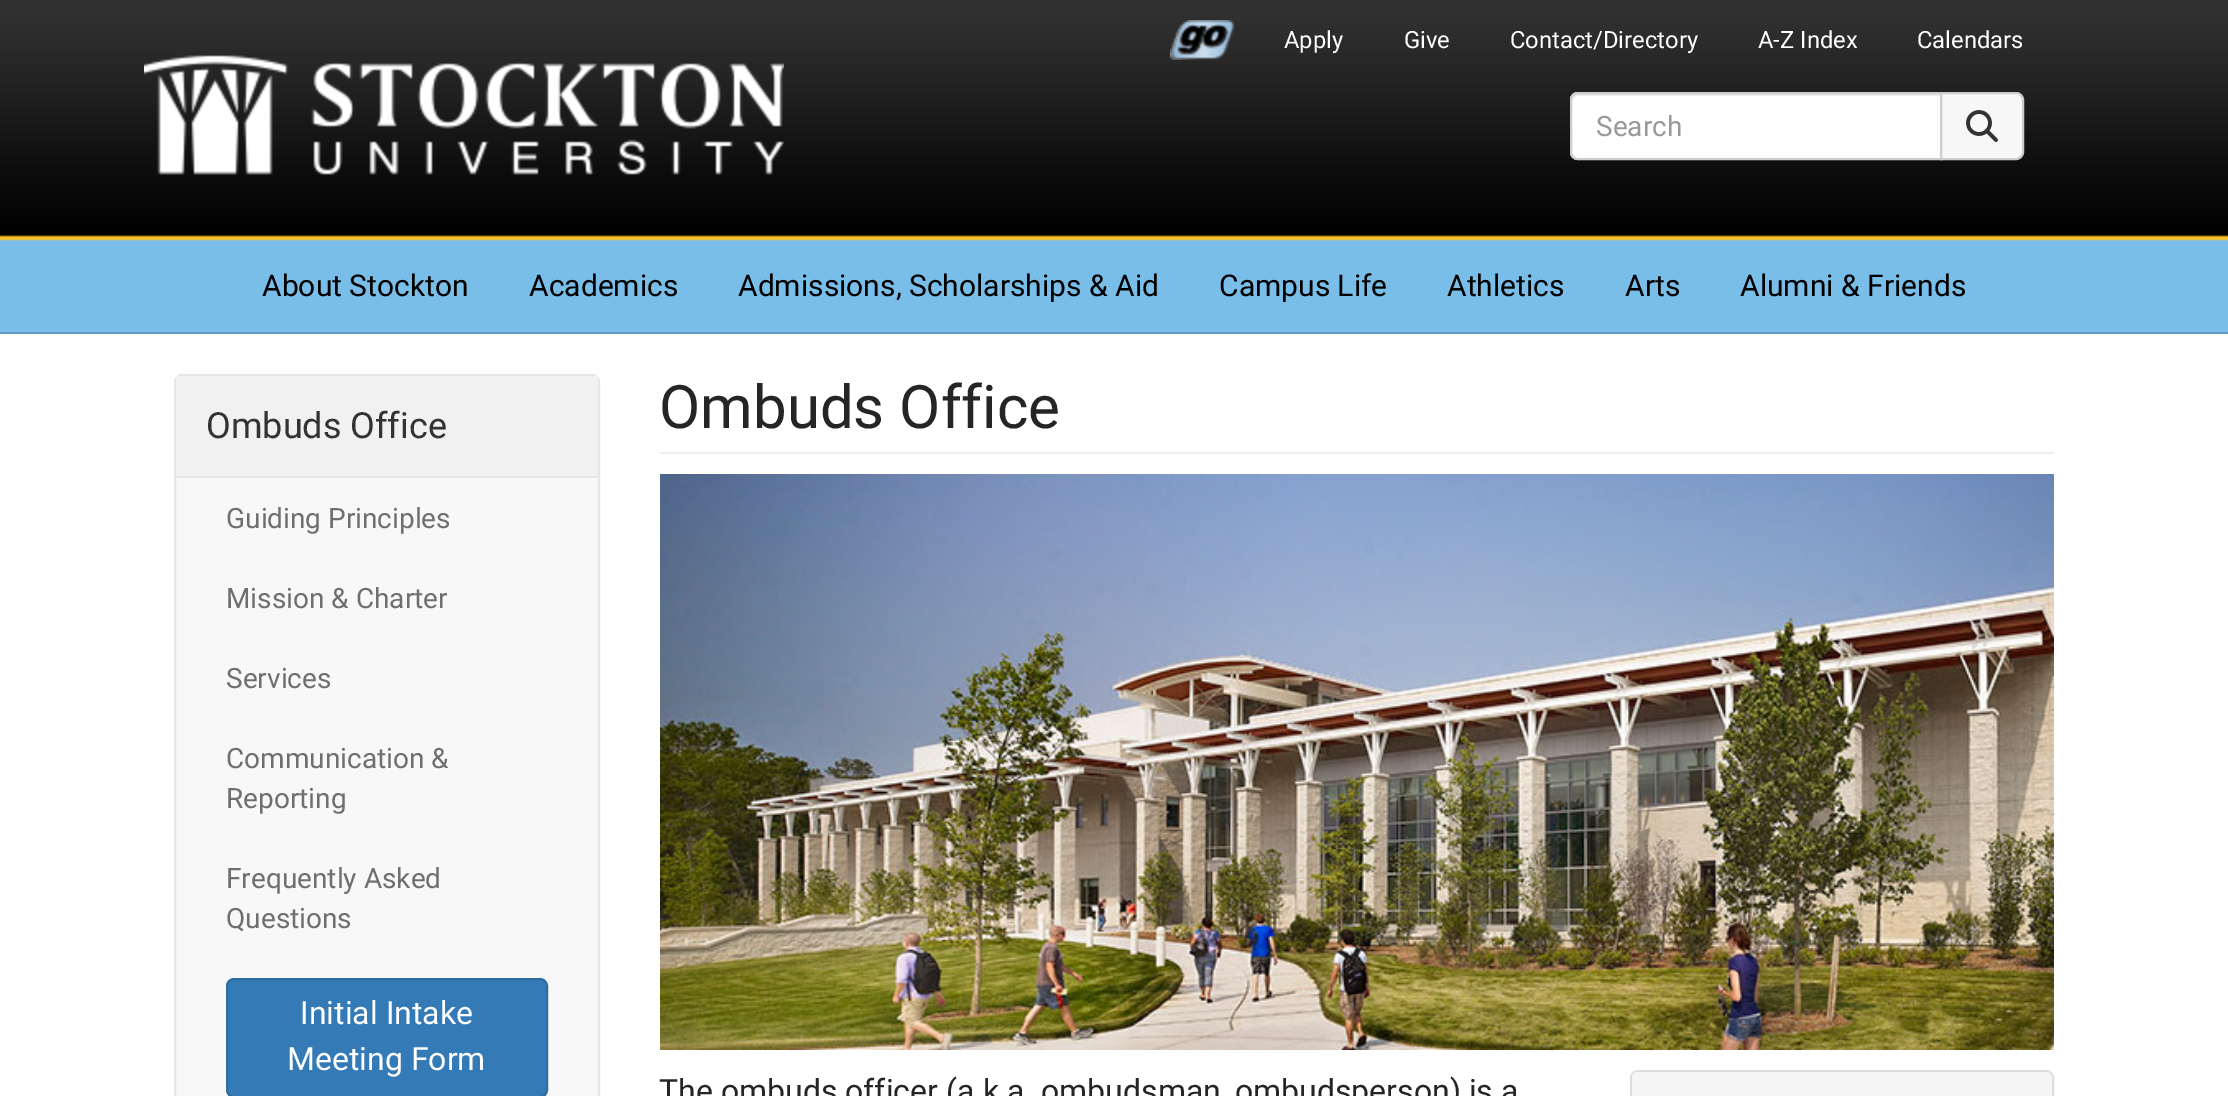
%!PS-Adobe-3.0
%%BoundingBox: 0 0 2228 1096
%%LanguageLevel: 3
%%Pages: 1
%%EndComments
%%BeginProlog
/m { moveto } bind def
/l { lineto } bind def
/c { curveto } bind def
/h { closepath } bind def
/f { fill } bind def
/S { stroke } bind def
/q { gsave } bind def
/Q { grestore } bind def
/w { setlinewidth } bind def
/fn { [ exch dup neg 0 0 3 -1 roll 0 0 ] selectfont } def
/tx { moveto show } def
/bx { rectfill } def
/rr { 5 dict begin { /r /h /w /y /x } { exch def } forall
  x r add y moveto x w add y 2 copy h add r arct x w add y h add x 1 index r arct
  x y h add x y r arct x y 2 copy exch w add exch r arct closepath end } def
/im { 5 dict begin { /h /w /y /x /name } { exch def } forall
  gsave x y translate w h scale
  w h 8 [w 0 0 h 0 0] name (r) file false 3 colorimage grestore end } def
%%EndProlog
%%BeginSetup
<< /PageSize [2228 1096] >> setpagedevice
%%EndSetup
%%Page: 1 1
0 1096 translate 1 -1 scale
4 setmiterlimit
0.475 0.741 0.914 setrgbcolor
0 0 2228 1096 bx
(image0.raw) 0 0 2228 241 im
0.38 0.608 0.773 setrgbcolor
0 332 2228 2 bx
(image1.raw) 1170 20 64 40 im
/Roboto-Regular 23.75 fn
1 setgray
(Apply) 1284 48 tx
(Give) 1404 48 tx
(Contact/Directory) 1510 48 tx
(A-Z Index) 1758 48 tx
(Calendars) 1917 48 tx
(image2.raw) 144 55 640 120 im
1578 92 m 1942 92 l 1942 160 l 1578 160 l 1573.5 160 1570 156.5 1570 152 c 1570 100 l 1570 95.5 1573.5 92 1578 92 c h f
0.925 setgray
1578 96 m 1940 96 l 1940 94 l 1578 94 l 1575 94 1572 97 1572 100 c 1572 102 l 1572 99 1575 96 1578 96 c h f
0.8 setgray
2 w
1578 93 m 1941 93 l 1941 159 l 1578 159 l 1574 159 1571 156 1571 152 c 1571 100 l 1571 96 1574 93 1578 93 c h S
/Roboto-Regular 28 fn
0.6 setgray
(Search) 1596 136 tx
0.969 setgray
1941 93 m 2016 93 l 2020 93 2023 96 2023 100 c 2023 152 l 2023 156 2020 159 2016 159 c 1941 159 l h q f Q
0.8 setgray
S
(image3.raw) 1966 110 32 32 im
/Roboto-Regular 30 fn
0 setgray
(About Stockton) 262 296 tx
(Academics) 529 296 tx
(Admissions, Scholarships & Aid) 738 296 tx
(Campus Life) 1219 296 tx
(Athletics) 1447 296 tx
(Arts) 1625 296 tx
(Alumni & Friends) 1740 296 tx
1 setgray
0 334 2228 762 bx
0.973 setgray
175 375 424 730 7 rr q f Q
0.906 setgray
S
0.945 setgray
176 376 422 100 bx
0.906 setgray
176 476 422 2 bx
/Roboto-Regular 36 fn
0.2 setgray
(Ombuds Office) 206 438 tx
/Roboto-Regular 28 fn
0.435 setgray
(Guiding Principles) 226 528 tx
(Mission & Charter) 226 608 tx
(Services) 226 688 tx
(Communication &) 226 768 tx
(Reporting) 226 808 tx
(Frequently Asked) 226 888 tx
(Questions) 226 928 tx
0.2 0.478 0.718 setrgbcolor
227 979 320 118 7 rr q f Q
0.18 0.427 0.643 setrgbcolor
S
/Roboto-Regular 32 fn
1 setgray
(Initial Intake) 300 1024 tx
(Meeting Form) 287 1070 tx
0.933 setgray
660 452 1394 2 bx
/Roboto-Regular 60 fn
0.145 setgray
(Ombuds Office) 659 428 tx
(image4.raw) 660 474 1394 576 im
/Roboto-Regular 32 fn
(The ombuds officer \(a.k.a. ombudsman, ombudsperson\) is a) 659 1102 tx
0.867 setgray
1631 1071 422 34 7 rr S
0.961 setgray
1638 1072 m 2046 1072 l 2049.5 1072 2052 1074.5 2052 1078 c 2052 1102 l 1632 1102 l 1632 1078 l 1632 1074.5 1634.5 1072 1638 1072 c h f
showpage
%%EOF
